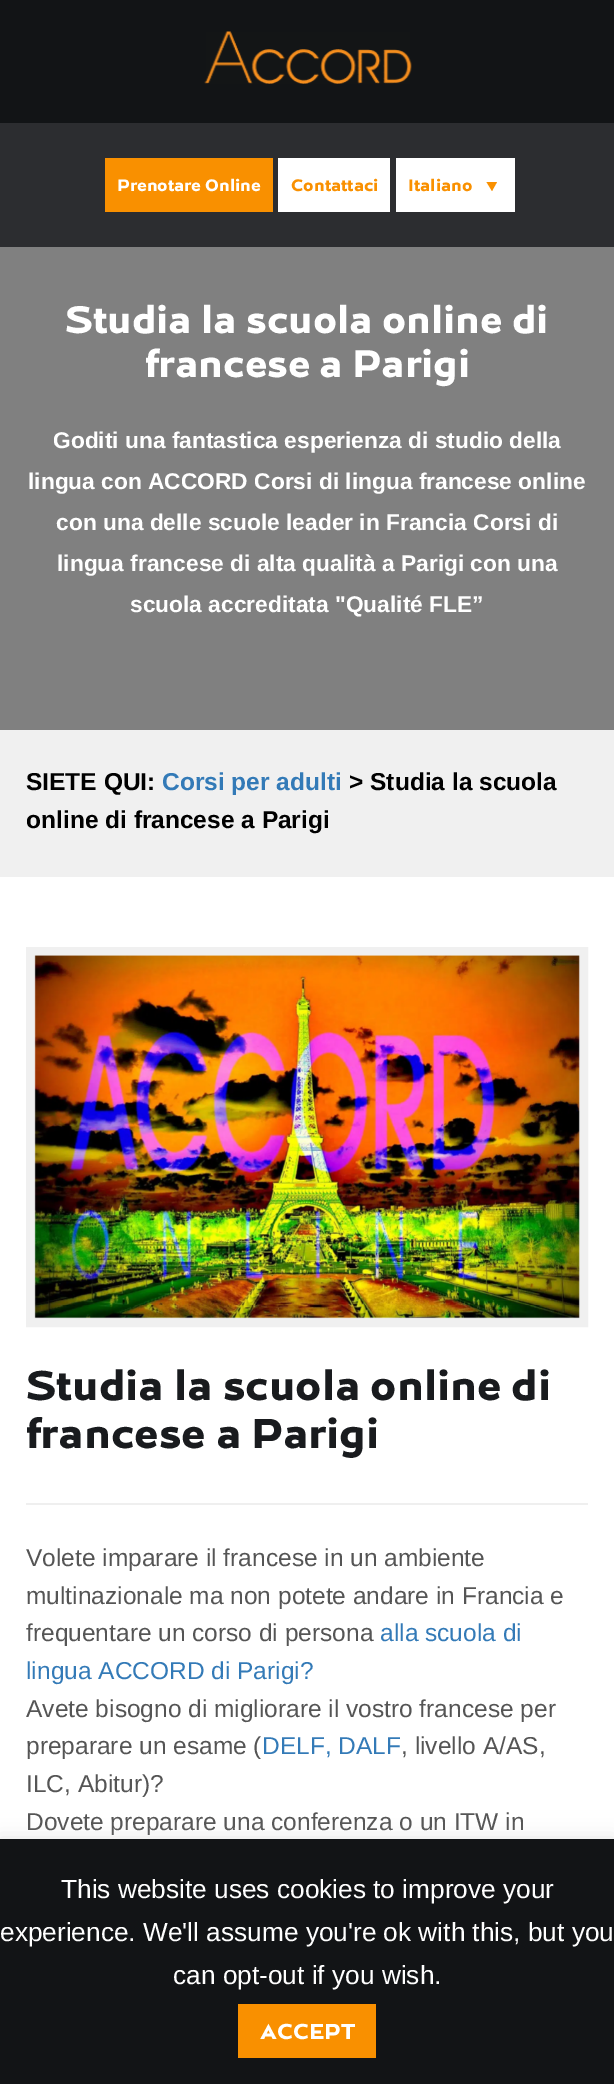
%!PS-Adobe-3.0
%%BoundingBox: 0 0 614 2084
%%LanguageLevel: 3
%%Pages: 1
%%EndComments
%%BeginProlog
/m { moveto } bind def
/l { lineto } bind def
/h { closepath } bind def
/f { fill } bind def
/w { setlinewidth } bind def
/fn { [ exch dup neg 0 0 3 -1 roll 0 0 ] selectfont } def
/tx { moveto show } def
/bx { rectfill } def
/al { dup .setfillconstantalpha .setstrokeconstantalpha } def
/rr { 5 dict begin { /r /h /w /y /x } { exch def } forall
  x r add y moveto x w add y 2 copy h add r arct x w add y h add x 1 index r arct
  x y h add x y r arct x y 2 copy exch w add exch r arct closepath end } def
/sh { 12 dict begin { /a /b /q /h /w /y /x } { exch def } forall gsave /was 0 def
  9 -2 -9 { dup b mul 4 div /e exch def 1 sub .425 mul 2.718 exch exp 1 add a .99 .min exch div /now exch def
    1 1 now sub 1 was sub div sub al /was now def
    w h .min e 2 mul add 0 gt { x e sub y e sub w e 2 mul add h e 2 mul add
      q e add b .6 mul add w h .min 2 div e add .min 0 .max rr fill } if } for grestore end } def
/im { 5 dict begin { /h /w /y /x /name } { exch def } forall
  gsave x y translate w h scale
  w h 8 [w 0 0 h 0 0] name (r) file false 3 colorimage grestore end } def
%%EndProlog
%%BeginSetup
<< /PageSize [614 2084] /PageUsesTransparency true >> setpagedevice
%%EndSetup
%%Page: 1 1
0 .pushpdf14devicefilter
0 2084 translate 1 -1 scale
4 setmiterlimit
1 setgray
0 0 614 2084 bx
0.071 0.078 0.086 setrgbcolor
0 0 614 123 bx
(image0.raw) 204 31 208 53 im
0.173 0.176 0.188 setrgbcolor
0 123 614 124 bx
0.976 0.565 0 setrgbcolor
105 158 168 54 bx
/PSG-Bold 17.5 fn
1 setgray
(Prenotare Online) 117 191 tx
278 158 112 54 bx
0.976 0.565 0 setrgbcolor
(Contattaci) 291 191 tx
1 setgray
396 158 119 54 bx
0.976 0.565 0 setrgbcolor
(Italiano) 408 191 tx
486.5 182 m 497 182 l 492 191 l h f
0.502 setgray
0 247 614 483 bx
/PSG-Bold 40.25 fn
1 setgray
(Studia la scuola online di) 65 333 tx
(francese a Parigi) 145 377 tx
/LiberationSans-Bold 22.75 fn
(Goditi una fantastica esperienza di studio della) 53 448 tx
(lingua con ACCORD Corsi di lingua francese online) 28 489 tx
(con una delle scuole leader in Francia Corsi di) 56 530 tx
(lingua francese di alta qualità a Parigi con una) 57 571 tx
(scuola accreditata "Qualité FLE”) 130 612 tx
0.941 setgray
0 730 614 147 bx
/LiberationSans-Bold 24.5 fn
0 setgray
(SIETE QUI:) 26 790 tx
0.2 0.478 0.718 setrgbcolor
(Corsi per adulti) 162 790 tx
0 setgray
(> Studia la scuola) 349 790 tx
(online di francese a Parigi) 26 828 tx
0.941 setgray
9 w
30.5 951.5 553 371 rectstroke
(image1.raw) 34 955 546 364 im
/PSG-Bold 43.75 fn
0.098 0.106 0.118 setrgbcolor
(Studia la scuola online di) 26 1400 tx
(francese a Parigi) 26 1448 tx
0.937 setgray
26 1503 562 2 bx
/LiberationSans-Regular 24.5 fn
0.333 setgray
(Volete imparare il francese in un ambiente) 26 1566 tx
(multinazionale ma non potete andare in Francia e) 26 1604 tx
(frequentare un corso di persona) 26 1641 tx
0.2 0.478 0.718 setrgbcolor
(alla scuola di) 380 1641 tx
(lingua ACCORD di Parigi?) 26 1679 tx
0.333 setgray
(Avete bisogno di migliorare il vostro francese per) 26 1717 tx
(preparare un esame \() 26 1754 tx
0.2 0.478 0.718 setrgbcolor
(DELF, DALF) 262 1754 tx
0.333 setgray
(, livello A/AS,) 401 1754 tx
(ILC, Abitur\)?) 26 1792 tx
(Dovete preparare una conferenza o un ITW in) 26 1830 tx
0.675 0.671 0.671 setrgbcolor
0 1838 614 245 0 9 0.3 sh
0.071 0.078 0.086 setrgbcolor
0 1839 614 245 bx
/LiberationSans-Regular 26.25 fn
1 setgray
(This website uses cookies to improve your) 61 1898 tx
(experience. We'll assume you're ok with this, but you) 0 1941 tx
(can opt-out if you wish.) 173 1984 tx
0.976 0.565 0 setrgbcolor
238 2004 138 54 bx
/PSG-Bold 22.75 fn
1 setgray
(ACCEPT) 260 2039 tx
.poppdf14devicefilter showpage
%%EOF
